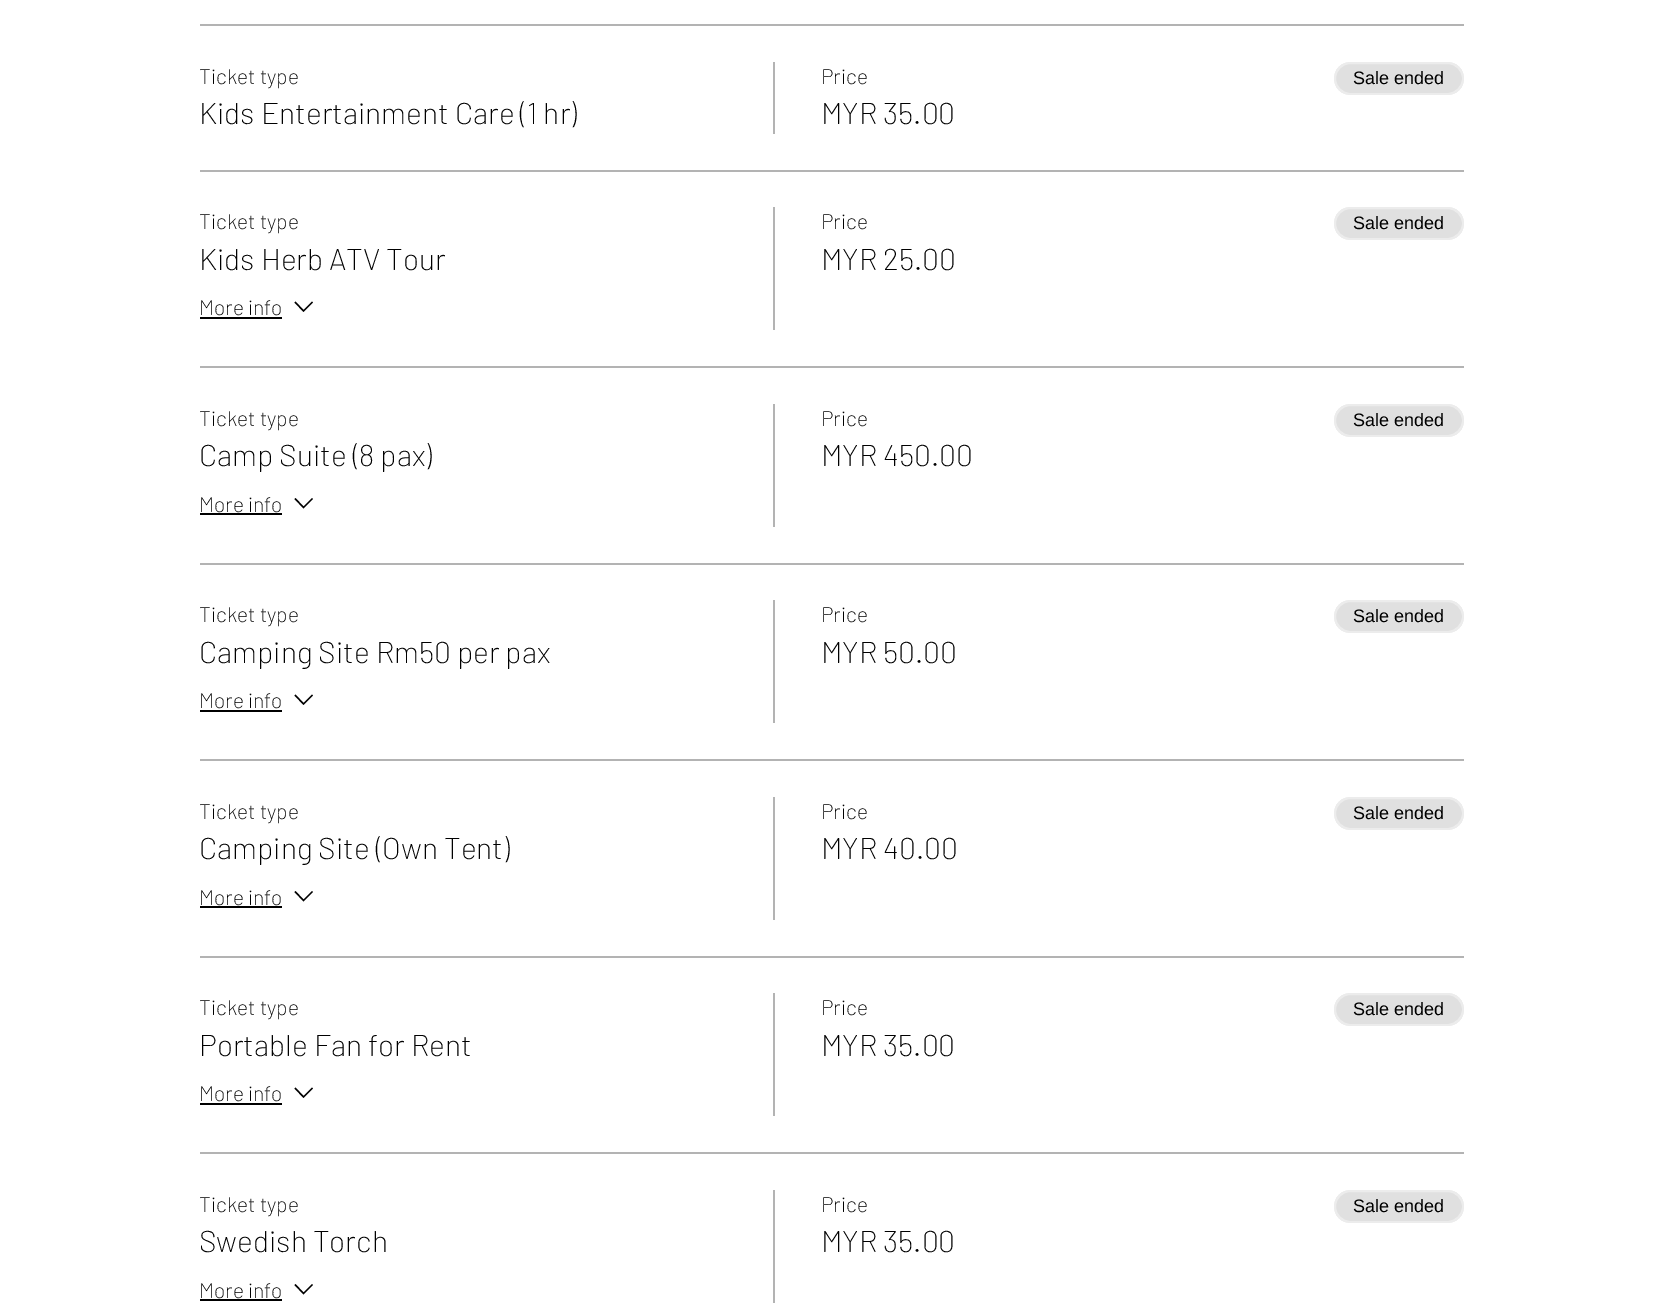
%!PS-Adobe-3.0
%%BoundingBox: 0 0 1662 1303
%%LanguageLevel: 3
%%Pages: 1
%%EndComments
%%BeginProlog
/m { moveto } bind def
/l { lineto } bind def
/h { closepath } bind def
/f { fill } bind def
/S { stroke } bind def
/w { setlinewidth } bind def
/fn { [ exch dup neg 0 0 3 -1 roll 0 0 ] selectfont } def
/tx { moveto show } def
/bx { rectfill } def
/al { dup .setfillconstantalpha .setstrokeconstantalpha } def
/rr { 5 dict begin { /r /h /w /y /x } { exch def } forall
  x r add y moveto x w add y 2 copy h add r arct x w add y h add x 1 index r arct
  x y h add x y r arct x y 2 copy exch w add exch r arct closepath end } def
%%EndProlog
%%BeginSetup
<< /PageSize [1662 1303] /PageUsesTransparency true >> setpagedevice
%%EndSetup
%%Page: 1 1
0 .pushpdf14devicefilter
0 1303 translate 1 -1 scale
4 setmiterlimit
1 setgray
0 0 1662 1303 bx
0.702 setgray
200 24 1264 2 bx
200 170 1264 2 bx
/Barlow-ExtraLight 21 fn
0 setgray
(Ticket type) 199 84 tx
/Barlow-ExtraLight 30 fn
(Kids Entertainment Care \(1 hr\)) 199 124 tx
0.702 setgray
773 62 2 72 bx
/Barlow-ExtraLight 21 fn
0 setgray
(Price) 821 84 tx
/Barlow-ExtraLight 30 fn
(MYR 35.00) 821 124 tx
0.878 setgray
1334 62 130 33 16.5 rr f
0.4 al
1 setgray
2 w
1335 63 128 31 15.5 rr S
/LiberationSans-Regular 18 fn
1 al
0 setgray
(Sale ended) 1353 84 tx
0.702 setgray
200 366 1264 2 bx
/Barlow-ExtraLight 21 fn
0 setgray
(Ticket type) 199 229 tx
/Barlow-ExtraLight 30 fn
(Kids Herb ATV Tour) 199 270 tx
/Barlow-ExtraLight 21 fn
(More info) 199 315 tx
200 317 82 2 bx
312 301.5 m 313 302.5 l 303.5 312 l 294.5 302.5 l 295.5 301.5 l 303.5 310 l h eofill
0.702 setgray
773 207 2 123 bx
0 setgray
(Price) 821 229 tx
/Barlow-ExtraLight 30 fn
(MYR 25.00) 821 270 tx
0.878 setgray
1334 207 130 33 16.5 rr f
0.4 al
1 setgray
1335 208 128 31 15.5 rr S
/LiberationSans-Regular 18 fn
1 al
0 setgray
(Sale ended) 1353 229 tx
0.702 setgray
200 563 1264 2 bx
/Barlow-ExtraLight 21 fn
0 setgray
(Ticket type) 199 426 tx
/Barlow-ExtraLight 30 fn
(Camp Suite \(8 pax\)) 199 466 tx
/Barlow-ExtraLight 21 fn
(More info) 199 512 tx
200 513 82 2 bx
312 498 m 313 499 l 303.5 508.5 l 294.5 499 l 295.5 498 l 303.5 506.5 l h eofill
0.702 setgray
773 404 2 123 bx
0 setgray
(Price) 821 426 tx
/Barlow-ExtraLight 30 fn
(MYR 450.00) 821 466 tx
0.878 setgray
1334 404 130 33 16.5 rr f
0.4 al
1 setgray
1335 405 128 31 15.5 rr S
/LiberationSans-Regular 18 fn
1 al
0 setgray
(Sale ended) 1353 426 tx
0.702 setgray
200 759 1264 2 bx
/Barlow-ExtraLight 21 fn
0 setgray
(Ticket type) 199 622 tx
/Barlow-ExtraLight 30 fn
(Camping Site Rm50 per pax) 199 663 tx
/Barlow-ExtraLight 21 fn
(More info) 199 708 tx
200 710 82 2 bx
312 694.5 m 313 695.5 l 303.5 705 l 294.5 695.5 l 295.5 694.5 l 303.5 703 l h eofill
0.702 setgray
773 600 2 123 bx
0 setgray
(Price) 821 622 tx
/Barlow-ExtraLight 30 fn
(MYR 50.00) 821 663 tx
0.878 setgray
1334 600 130 33 16.5 rr f
0.4 al
1 setgray
1335 601 128 31 15.5 rr S
/LiberationSans-Regular 18 fn
1 al
0 setgray
(Sale ended) 1353 622 tx
0.702 setgray
200 956 1264 2 bx
/Barlow-ExtraLight 21 fn
0 setgray
(Ticket type) 199 819 tx
/Barlow-ExtraLight 30 fn
(Camping Site \(Own Tent\)) 199 859 tx
/Barlow-ExtraLight 21 fn
(More info) 199 905 tx
200 906 82 2 bx
312 891 m 313 892 l 303.5 901.5 l 294.5 892 l 295.5 891 l 303.5 899.5 l h eofill
0.702 setgray
773 797 2 123 bx
0 setgray
(Price) 821 819 tx
/Barlow-ExtraLight 30 fn
(MYR 40.00) 821 859 tx
0.878 setgray
1334 797 130 33 16.5 rr f
0.4 al
1 setgray
1335 798 128 31 15.5 rr S
/LiberationSans-Regular 18 fn
1 al
0 setgray
(Sale ended) 1353 819 tx
0.702 setgray
200 1152 1264 2 bx
/Barlow-ExtraLight 21 fn
0 setgray
(Ticket type) 199 1015 tx
/Barlow-ExtraLight 30 fn
(Portable Fan for Rent) 199 1056 tx
/Barlow-ExtraLight 21 fn
(More info) 199 1101 tx
200 1103 82 2 bx
312 1087.5 m 313 1088.5 l 303.5 1098 l 294.5 1088.5 l 295.5 1087.5 l 303.5 1096 l h eofill
0.702 setgray
773 993 2 123 bx
0 setgray
(Price) 821 1015 tx
/Barlow-ExtraLight 30 fn
(MYR 35.00) 821 1056 tx
0.878 setgray
1334 993 130 33 16.5 rr f
0.4 al
1 setgray
1335 994 128 31 15.5 rr S
/LiberationSans-Regular 18 fn
1 al
0 setgray
(Sale ended) 1353 1015 tx
/Barlow-ExtraLight 21 fn
(Ticket type) 199 1212 tx
/Barlow-ExtraLight 30 fn
(Swedish Torch) 199 1252 tx
/Barlow-ExtraLight 21 fn
(More info) 199 1298 tx
200 1299 82 2 bx
312 1284 m 313 1285 l 303.5 1294.5 l 294.5 1285 l 295.5 1284 l 303.5 1292.5 l h eofill
0.702 setgray
773 1190 2 113 bx
0 setgray
(Price) 821 1212 tx
/Barlow-ExtraLight 30 fn
(MYR 35.00) 821 1252 tx
0.878 setgray
1334 1190 130 33 16.5 rr f
0.4 al
1 setgray
1335 1191 128 31 15.5 rr S
/LiberationSans-Regular 18 fn
1 al
0 setgray
(Sale ended) 1353 1212 tx
.poppdf14devicefilter showpage
%%EOF
